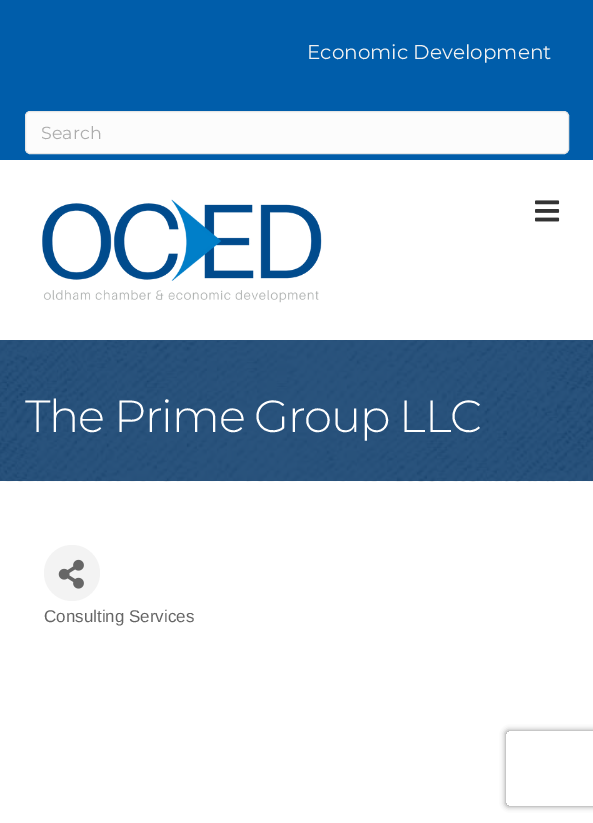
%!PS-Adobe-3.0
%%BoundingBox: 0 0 593 823
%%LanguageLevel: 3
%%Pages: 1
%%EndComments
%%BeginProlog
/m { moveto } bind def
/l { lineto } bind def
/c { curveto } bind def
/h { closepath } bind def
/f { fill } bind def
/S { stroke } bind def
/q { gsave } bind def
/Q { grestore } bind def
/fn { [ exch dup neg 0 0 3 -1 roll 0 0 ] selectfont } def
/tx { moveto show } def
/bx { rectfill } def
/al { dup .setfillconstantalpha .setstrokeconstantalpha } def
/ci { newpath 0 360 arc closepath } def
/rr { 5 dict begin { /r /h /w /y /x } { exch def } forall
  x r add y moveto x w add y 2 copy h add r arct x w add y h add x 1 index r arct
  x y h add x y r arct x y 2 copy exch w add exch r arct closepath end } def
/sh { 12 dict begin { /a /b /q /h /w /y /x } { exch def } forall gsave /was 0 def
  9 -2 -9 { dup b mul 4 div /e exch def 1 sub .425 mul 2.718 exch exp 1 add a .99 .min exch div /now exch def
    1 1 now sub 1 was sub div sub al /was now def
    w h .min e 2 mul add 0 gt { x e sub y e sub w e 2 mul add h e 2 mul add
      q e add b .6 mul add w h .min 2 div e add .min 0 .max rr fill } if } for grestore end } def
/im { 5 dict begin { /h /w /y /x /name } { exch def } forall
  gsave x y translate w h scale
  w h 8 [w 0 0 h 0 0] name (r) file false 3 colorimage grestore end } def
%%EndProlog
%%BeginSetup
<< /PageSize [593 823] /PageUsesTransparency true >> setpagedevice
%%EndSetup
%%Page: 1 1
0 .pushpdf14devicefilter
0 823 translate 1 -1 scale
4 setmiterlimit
1 setgray
0 0 593 823 bx
0 0.365 0.667 setrgbcolor
0 0 593 160 bx
/Montserrat-Regular 20 fn
0.945 setgray
(Economic Development) 307 59 tx
0.988 setgray
25.5 111.5 543 42 4.5 rr q f Q
0.902 setgray
S
/Montserrat-Regular 17.5 fn
0.675 setgray
(Search) 41 139 tx
(image0.raw) 42 199 280 104 im
(image1.raw) 535 200 25 22 im
(image2.raw) 0 340 593 142 im
/Montserrat-Light 45 fn
1 setgray
25 432 m -1.25 0 (The Prime Group LLC) ashow
0.953 setgray
72 573 28 ci f
(image3.raw) 58 559 26 30 im
/LiberationSans-Regular 17 fn
0.396 setgray
(Consulting Services) 44 622 tx
q
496 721 m 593 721 l 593 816 l 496 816 l h 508.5 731 m 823.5 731 l 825 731 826 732 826 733.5 c 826 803.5 l 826 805 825 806 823.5 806 c 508.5 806 l 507 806 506 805 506 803.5 c 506 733.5 l 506 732 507 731 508.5 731 c h eoclip newpath
0.502 setgray
506 731 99 75 2.5 3 1 sh
Q
.poppdf14devicefilter showpage
%%EOF
